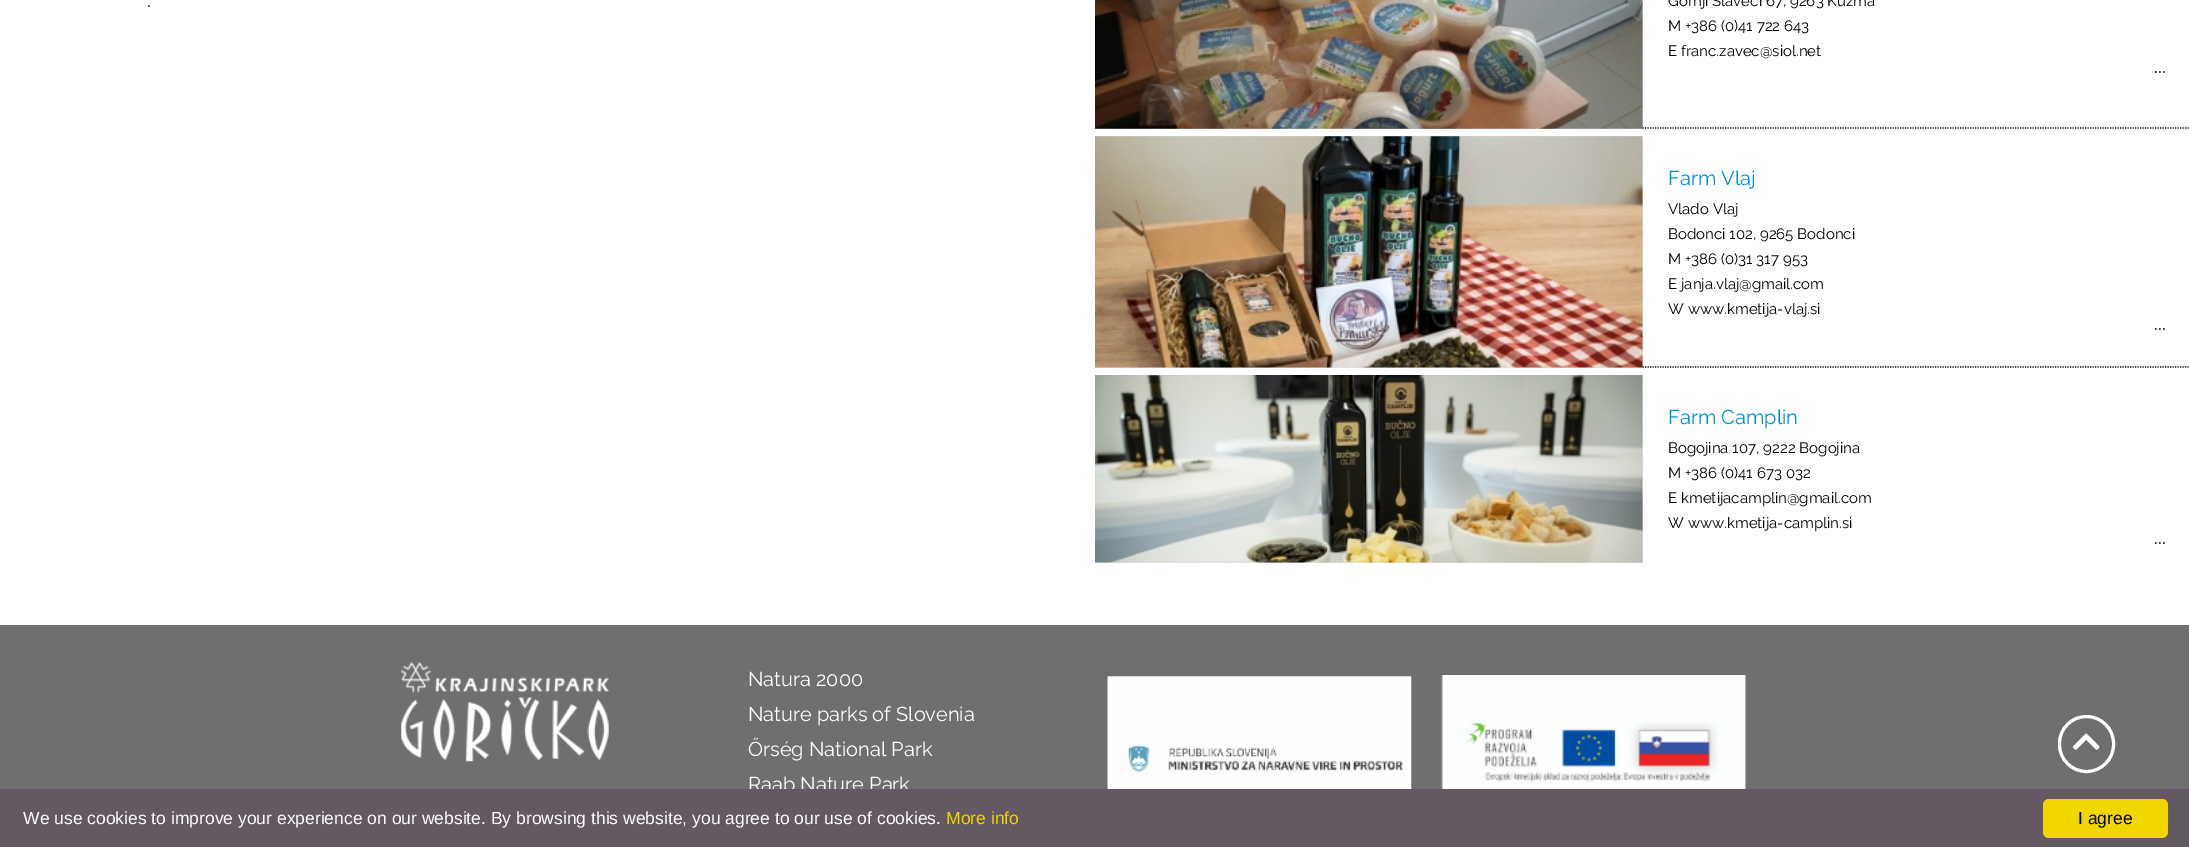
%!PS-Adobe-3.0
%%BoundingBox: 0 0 2189 847
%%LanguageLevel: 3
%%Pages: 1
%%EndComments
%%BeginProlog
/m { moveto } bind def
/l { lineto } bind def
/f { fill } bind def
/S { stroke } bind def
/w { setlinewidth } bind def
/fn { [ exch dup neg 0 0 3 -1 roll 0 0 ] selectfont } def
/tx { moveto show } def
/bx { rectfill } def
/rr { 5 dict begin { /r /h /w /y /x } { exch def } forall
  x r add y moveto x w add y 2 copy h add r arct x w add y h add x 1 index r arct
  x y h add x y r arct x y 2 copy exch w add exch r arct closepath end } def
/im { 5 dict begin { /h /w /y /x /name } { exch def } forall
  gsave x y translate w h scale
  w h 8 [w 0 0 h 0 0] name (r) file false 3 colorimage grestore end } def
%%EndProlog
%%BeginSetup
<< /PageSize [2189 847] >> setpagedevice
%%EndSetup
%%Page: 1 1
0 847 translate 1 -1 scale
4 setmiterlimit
1 setgray
0 0 2189 847 bx
/Raleway-Regular 20 fn
0.137 0.122 0.125 setrgbcolor
(.) 147 7 tx
0.867 setgray
1095 0 548 129 bx
(image0.raw) 1095 0 548 129 im
0 setgray
1.2 w
[1.25 1.25] 0 setdash
1642.5 128 m 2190 128 l S
/Raleway-Regular 15 fn
(Gornji Slaveči 67, 9263 Kuzma) 1668 6 tx
(M +386 \(0\)41 722 643) 1668 31 tx
(E franc.zavec@siol.net) 1668 56 tx
/Raleway-Regular 20 fn
(...) 2154 73 tx
0.867 setgray
1095 136 548 232 bx
(image1.raw) 1095 136 548 232 im
0 setgray
1642.5 367 m 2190 367 l S
0 0.569 0.835 setrgbcolor
(Farm Vlaj) 1668 185 tx
/Raleway-Regular 15 fn
0 setgray
(Vlado Vlaj) 1668 214 tx
(Bodonci 102, 9265 Bodonci) 1668 239 tx
(M +386 \(0\)31 317 953) 1668 264 tx
(E janja.vlaj@gmail.com) 1668 289 tx
(W www.kmetija-vlaj.si) 1668 314 tx
/Raleway-Regular 20 fn
(...) 2154 330 tx
0.867 setgray
1095 375 548 188 bx
(image2.raw) 1095 375 548 188 im
0 0.569 0.835 setrgbcolor
(Farm Camplin) 1668 424 tx
/Raleway-Regular 15 fn
0 setgray
(Bogojina 107, 9222 Bogojina) 1668 453 tx
(M +386 \(0\)41 673 032) 1668 478 tx
(E kmetijacamplin@gmail.com) 1668 503 tx
(W www.kmetija-camplin.si) 1668 528 tx
/Raleway-Regular 20 fn
(...) 2154 544 tx
0.431 0.435 0.431 setrgbcolor
0 625 2189 164 bx
(image3.raw) 401 662 208 100 im
1 setgray
(Natura 2000) 748 686 tx
(Nature parks of Slovenia) 748 721 tx
(Őrség National Park) 748 756 tx
(Raab Nature Park) 748 791 tx
(image4.raw) 1107 676 305 113 im
(image5.raw) 1441 675 306 114 im
3 w
[] 0 setdash
2059.5 716.5 54 55 27 rr S
(image6.raw) 2072 733 28 17 im
0.392 0.345 0.384 setrgbcolor
0 789 2189 58 bx
/LiberationSans-Regular 17.5 fn
1 setgray
(We use cookies to improve your experience on our website. By browsing this website, you agree to our use of cookies.) 23 824 tx
0.945 0.839 0 setrgbcolor
(More info) 946 824 tx
2043 799 125 39 6 rr f
0 setgray
(I agree) 2078 824 tx
showpage
%%EOF
